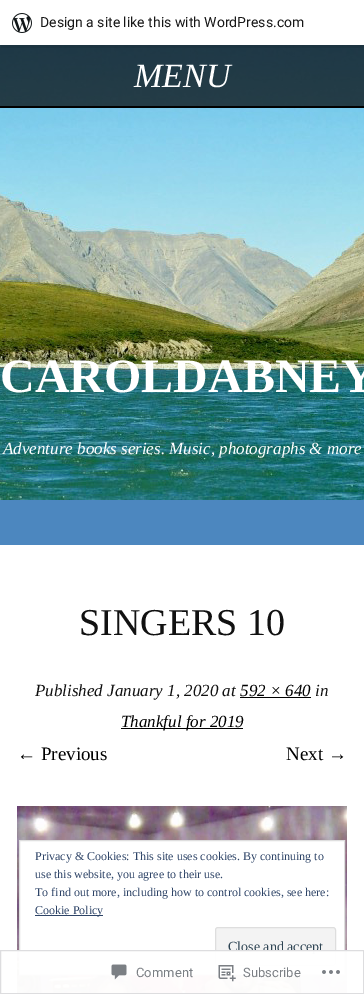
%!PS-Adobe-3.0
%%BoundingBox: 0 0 364 994
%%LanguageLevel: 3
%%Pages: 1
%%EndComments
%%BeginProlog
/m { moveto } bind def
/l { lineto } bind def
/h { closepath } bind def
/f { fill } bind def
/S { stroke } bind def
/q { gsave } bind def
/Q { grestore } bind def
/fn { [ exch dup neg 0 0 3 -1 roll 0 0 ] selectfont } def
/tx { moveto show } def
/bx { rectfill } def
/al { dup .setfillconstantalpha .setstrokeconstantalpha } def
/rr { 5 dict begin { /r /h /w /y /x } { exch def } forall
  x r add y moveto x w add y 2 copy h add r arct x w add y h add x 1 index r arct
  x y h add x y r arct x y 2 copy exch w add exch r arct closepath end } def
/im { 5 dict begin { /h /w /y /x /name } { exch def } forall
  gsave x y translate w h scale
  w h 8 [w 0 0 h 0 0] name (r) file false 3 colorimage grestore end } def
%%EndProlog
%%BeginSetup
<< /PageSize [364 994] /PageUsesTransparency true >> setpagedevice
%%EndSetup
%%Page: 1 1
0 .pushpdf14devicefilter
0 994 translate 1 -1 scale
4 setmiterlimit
0.298 0.529 0.749 setrgbcolor
0 0 364 994 bx
(image1.raw) 0 45 364 455 im
0.7 al
0 setgray
0 45 364 61 bx
0.08 al
1 45 m 1 48 l 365 48 l 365 3 l 364 3 l 364 45 l h f
1 al
1 setgray
0 0 364 45 bx
(image0.raw) 12 13 20 20 im
/Roboto-Regular 14 fn
0.09 setgray
(Design a site like this with WordPress.com) 40 27 tx
0 setgray
0 106 364 2 bx
/LiberationSerif-Italic 34 fn
1 setgray
(MENU) 134 87 tx
/LiberationSerif-Bold 48 fn
(CAROLDABNEY) 0 392 tx
/LiberationSerif-Italic 17 fn
(Adventure books series. Music, photographs & more) 3 454 tx
0 545 364 449 bx
/LiberationSerif-Regular 38 fn
0.067 setgray
(SINGERS 10) 79 635 tx
/LiberationSerif-Italic 17 fn
(Published January 1, 2020 at) 35 696 tx
0 setgray
(592 × 640) 240 696 tx
240 697 71 1 bx
0.067 setgray
(in) 315 696 tx
0 setgray
121 728 122 1 bx
(Thankful for 2019) 121 727 tx
/LiberationSerif-Regular 19 fn
(← Previous) 17 760 tx
(Next →) 286 760 tx
(image2.raw) 17 806 330 188 im
1 setgray
19.5 840.5 m 344.5 840.5 l 344.5 974.5 l 19.5 974.5 l h q f Q
0.871 setgray
S
/LiberationSerif-Regular 12 fn
0.18 0.267 0.404 setrgbcolor
(Privacy & Cookies: This site uses cookies. By continuing to) 35 860 tx
(use this website, you agree to their use.) 35 878 tx
(To find out more, including how to control cookies, see here:) 35 896 tx
35 915 68 1 bx
(Cookie Policy) 35 914 tx
0.953 setgray
215.5 927.5 120 38 2.5 rr q f Q
0.871 setgray
S
/LiberationSerif-Regular 14 fn
0.18 0.267 0.325 setrgbcolor
(Close and accept) 228 951 tx
0.98 al
1 setgray
17 950 330 44 bx
0.863 0.863 0.871 setrgbcolor
0.5 950.5 363 43 rectstroke
1 al
(image3.raw) 111 964 16 16 im
/Roboto-Regular 13 fn
0.482 0.498 0.518 setrgbcolor
(Comment) 136 977 tx
(image4.raw) 218 965 18 17 im
(Subscribe) 243 977 tx
(image5.raw) 322 970 18 4 im
.poppdf14devicefilter showpage
%%EOF
